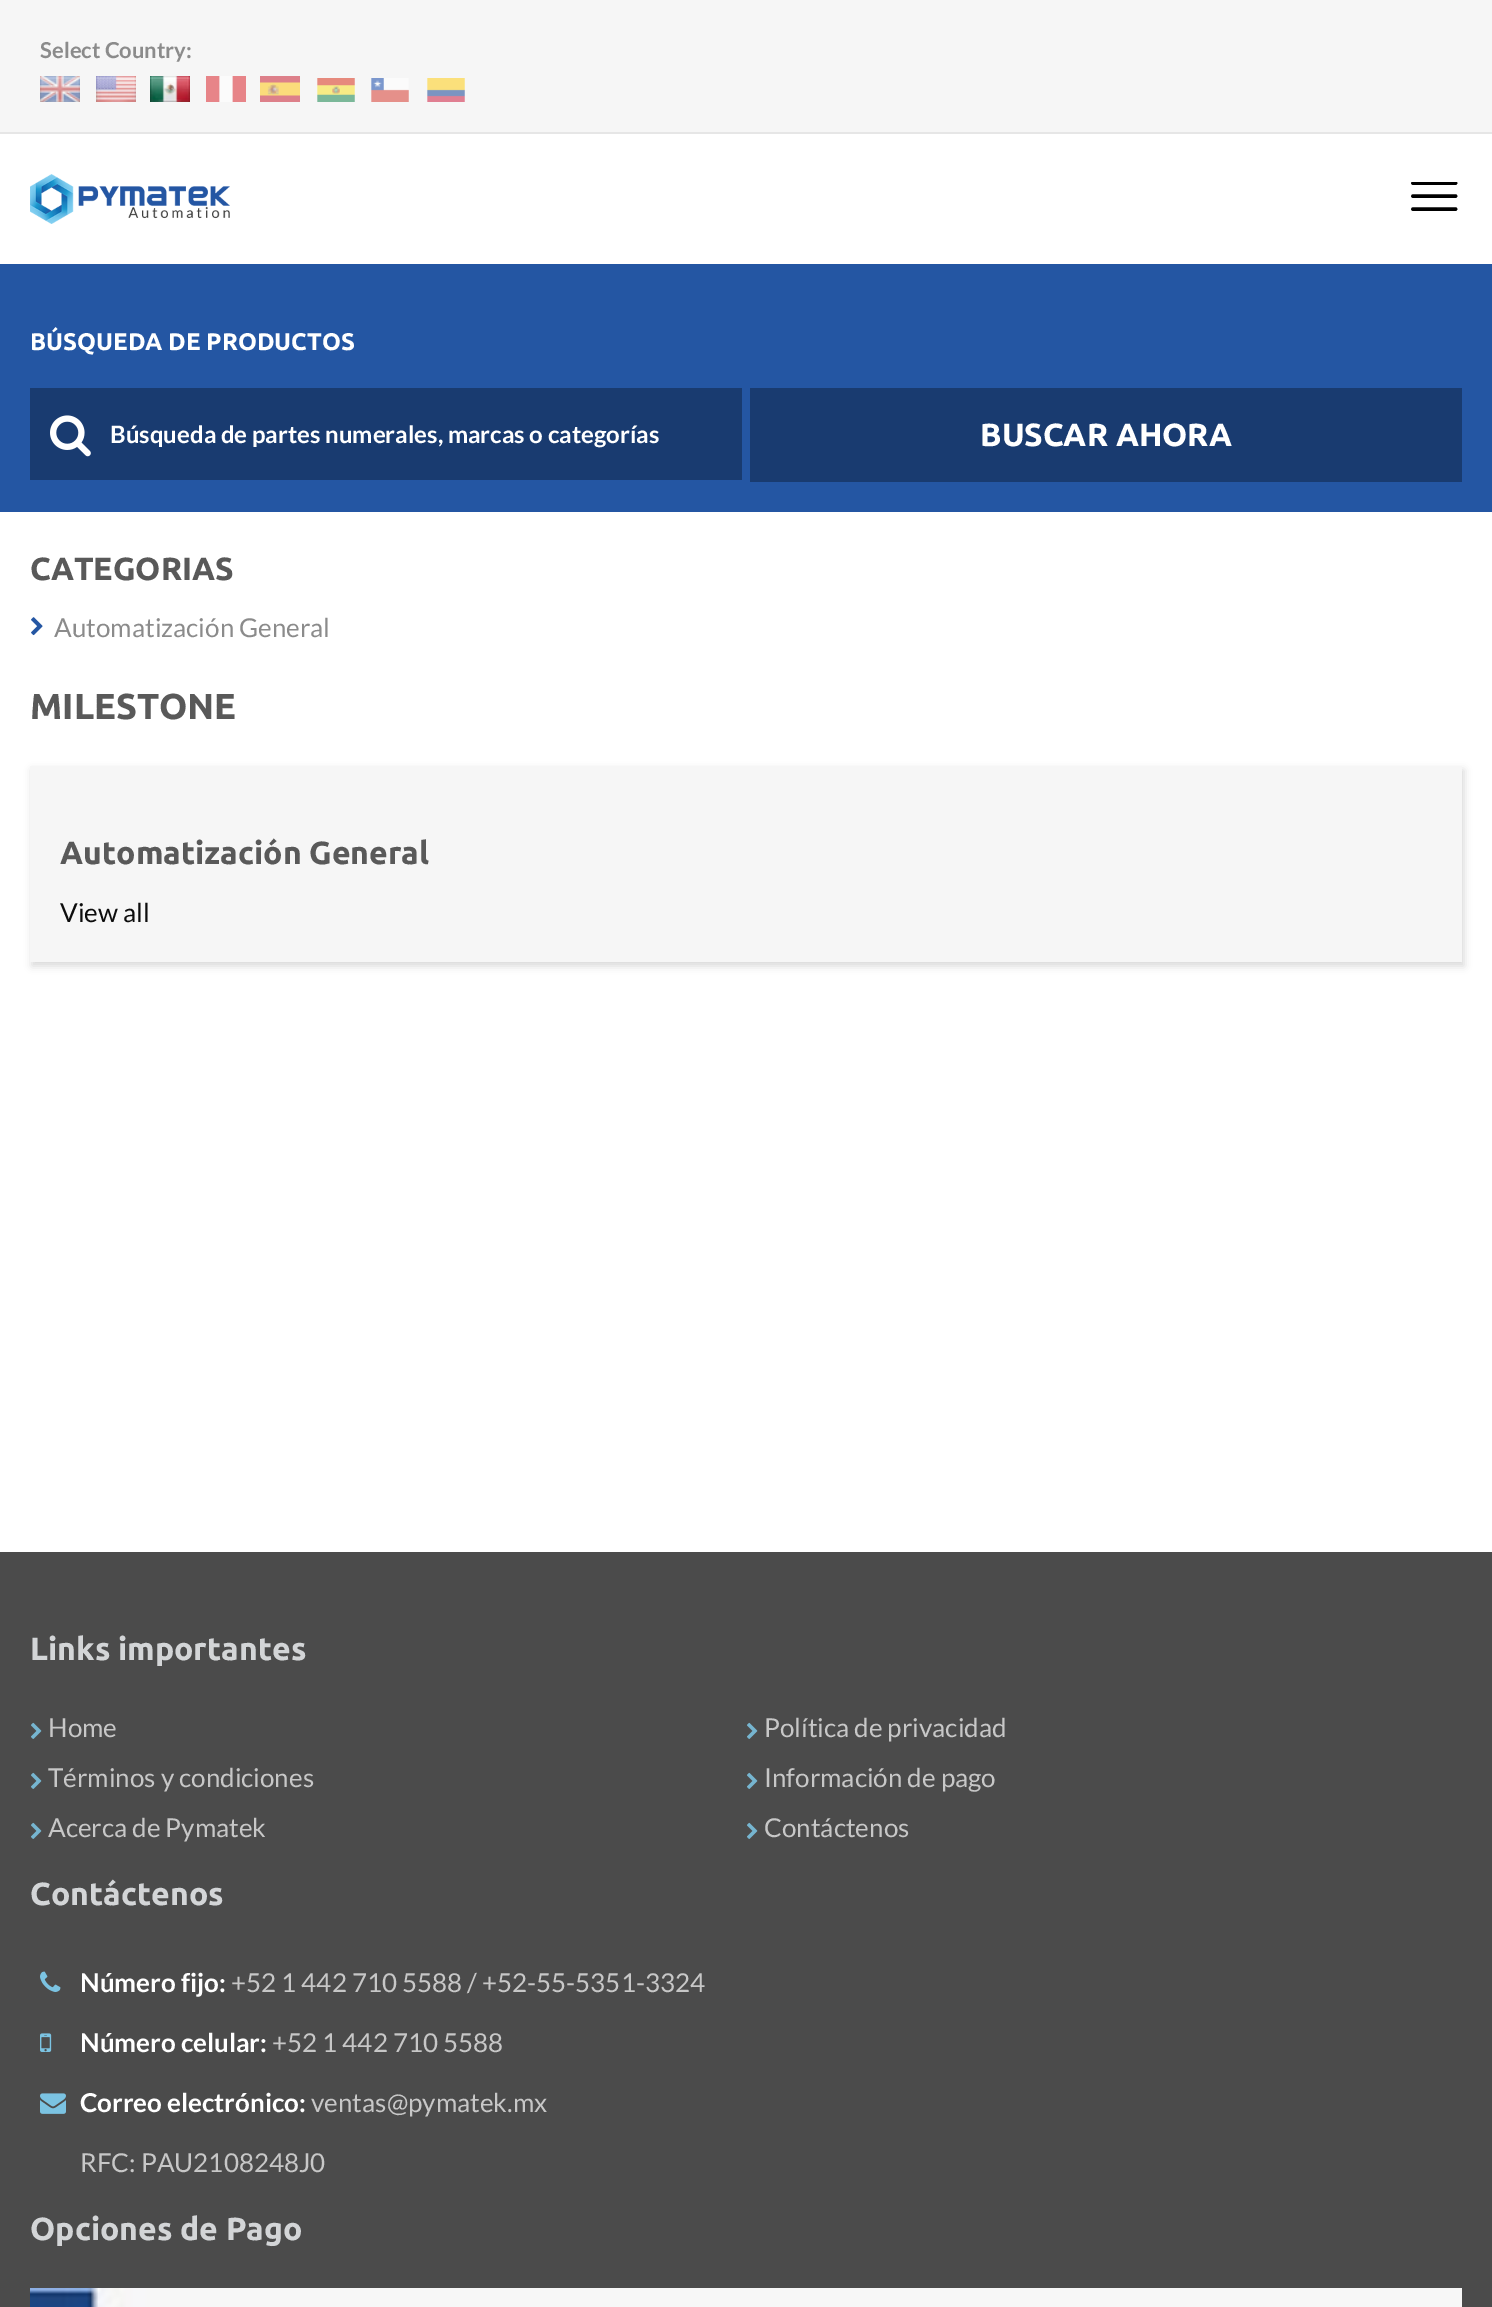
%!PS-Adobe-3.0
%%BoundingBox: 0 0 1492 2307
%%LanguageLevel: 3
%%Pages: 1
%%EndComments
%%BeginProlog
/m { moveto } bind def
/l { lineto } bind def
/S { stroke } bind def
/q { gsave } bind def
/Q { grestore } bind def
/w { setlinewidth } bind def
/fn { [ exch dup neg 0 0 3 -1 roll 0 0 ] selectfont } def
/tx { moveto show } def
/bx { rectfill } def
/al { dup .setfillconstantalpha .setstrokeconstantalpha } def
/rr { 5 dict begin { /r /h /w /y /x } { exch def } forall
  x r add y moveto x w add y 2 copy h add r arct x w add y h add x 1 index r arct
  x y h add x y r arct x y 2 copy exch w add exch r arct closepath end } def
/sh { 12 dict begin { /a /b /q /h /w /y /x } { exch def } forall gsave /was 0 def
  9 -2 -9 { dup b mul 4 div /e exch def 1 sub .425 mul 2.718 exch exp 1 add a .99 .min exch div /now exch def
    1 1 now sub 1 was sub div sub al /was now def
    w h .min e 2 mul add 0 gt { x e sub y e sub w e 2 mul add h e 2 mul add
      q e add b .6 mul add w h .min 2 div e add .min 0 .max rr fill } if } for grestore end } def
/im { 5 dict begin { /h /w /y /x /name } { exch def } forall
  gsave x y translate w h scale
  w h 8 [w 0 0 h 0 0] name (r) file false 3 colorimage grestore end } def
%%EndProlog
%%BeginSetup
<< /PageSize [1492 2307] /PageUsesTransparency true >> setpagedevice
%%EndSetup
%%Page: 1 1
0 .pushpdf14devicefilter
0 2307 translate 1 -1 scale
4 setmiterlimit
1 setgray
0 0 1492 2307 bx
0.965 setgray
0 0 1492 132 bx
0.902 setgray
0 132 1492 2 bx
/Lato-Bold 22 fn
0.545 setgray
(Select Country:) 40 58 tx
(image0.raw) 40 76 40 26 im
(image1.raw) 96 76 40 26 im
(image2.raw) 150 76 40 26 im
(image3.raw) 206 76 40 26 im
(image4.raw) 260 76 40 26 im
(image5.raw) 317 78 38 24 im
(image6.raw) 371 78 38 24 im
(image7.raw) 427 78 38 24 im
(image8.raw) 30 174 200 50 im
q
1410 182 48 30 rectclip
0 setgray
3.6 w
1 setlinecap
1 setlinejoin
1413 183 m 1455.5 183 l S
Q
0 setgray
3.6 w
1 setlinecap
1 setlinejoin
1413 196 m 1455.5 196 l 1413 209 m 1455.5 209 l S
0.141 0.337 0.639 setrgbcolor
0 264 1492 248 bx
/Ubuntu-Bold 24 fn
1 setgray
(BÚSQUEDA DE PRODUCTOS) 30 350 tx
0.098 0.231 0.439 setrgbcolor
30 388 712 92 bx
(image9.raw) 50 415 41 42 im
/Lato-Bold 24 fn
1 setgray
(Búsqueda de partes numerales, marcas o categorías) 110 443 tx
0.098 0.231 0.439 setrgbcolor
750 388 712 94 bx
/Ubuntu-Bold 32 fn
1 setgray
(BUSCAR AHORA) 980 446 tx
0.349 setgray
(CATEGORIAS) 30 580 tx
(image10.raw) 31 617 12 19 im
/Lato-Regular 26 fn
0.545 setgray
(Automatización General) 54 637 tx
/Ubuntu-Bold 36 fn
0.349 setgray
(MILESTONE) 30 719 tx
0 setgray
32 770 1432 196 0 4 0.15 sh
0.965 setgray
30 766 1432 196 bx
/Ubuntu-Bold 32 fn
0.349 setgray
(Automatización General) 60 864 tx
/Lato-Regular 26 fn
0.051 setgray
(View all) 60 922 tx
0.294 setgray
0 1552 1492 755 bx
/Ubuntu-Bold 32 fn
0.827 0.835 0.843 setrgbcolor
(Links importantes) 30 1660 tx
(image11.raw) 31 1722 11 17 im
/Lato-Regular 26 fn
0.78 setgray
(Home) 48 1737 tx
(image11.raw) 747 1722 11 17 im
(Política de privacidad) 764 1737 tx
(image11.raw) 31 1772 11 17 im
(Términos y condiciones) 48 1787 tx
(image11.raw) 747 1772 11 17 im
(Información de pago) 764 1787 tx
(image11.raw) 31 1822 11 17 im
(Acerca de Pymatek) 48 1837 tx
(image11.raw) 747 1822 11 17 im
(Contáctenos) 764 1837 tx
/Ubuntu-Bold 32 fn
0.827 0.835 0.843 setrgbcolor
(Contáctenos) 30 1905 tx
(image12.raw) 40 1971 21 21 im
/Lato-Bold 26 fn
1 setgray
(Número fijo:) 80 1992 tx
/Lato-Regular 26 fn
0.78 setgray
(+52 1 442 710 5588 / +52-55-5351-3324) 231 1992 tx
(image13.raw) 40 2033 12 19 im
/Lato-Bold 26 fn
1 setgray
(Número celular:) 80 2052 tx
/Lato-Regular 26 fn
0.78 setgray
(+52 1 442 710 5588) 272 2052 tx
(image14.raw) 40 2093 26 21 im
/Lato-Bold 26 fn
1 setgray
(Correo electrónico:) 80 2112 tx
/Lato-Regular 26 fn
0.78 setgray
(ventas@pymatek.mx) 311 2112 tx
(RFC: PAU2108248J0) 80 2172 tx
/Ubuntu-Bold 32 fn
0.827 0.835 0.843 setrgbcolor
(Opciones de Pago) 30 2240 tx
(image15.raw) 30 2288 1432 19 im
.poppdf14devicefilter showpage
%%EOF
